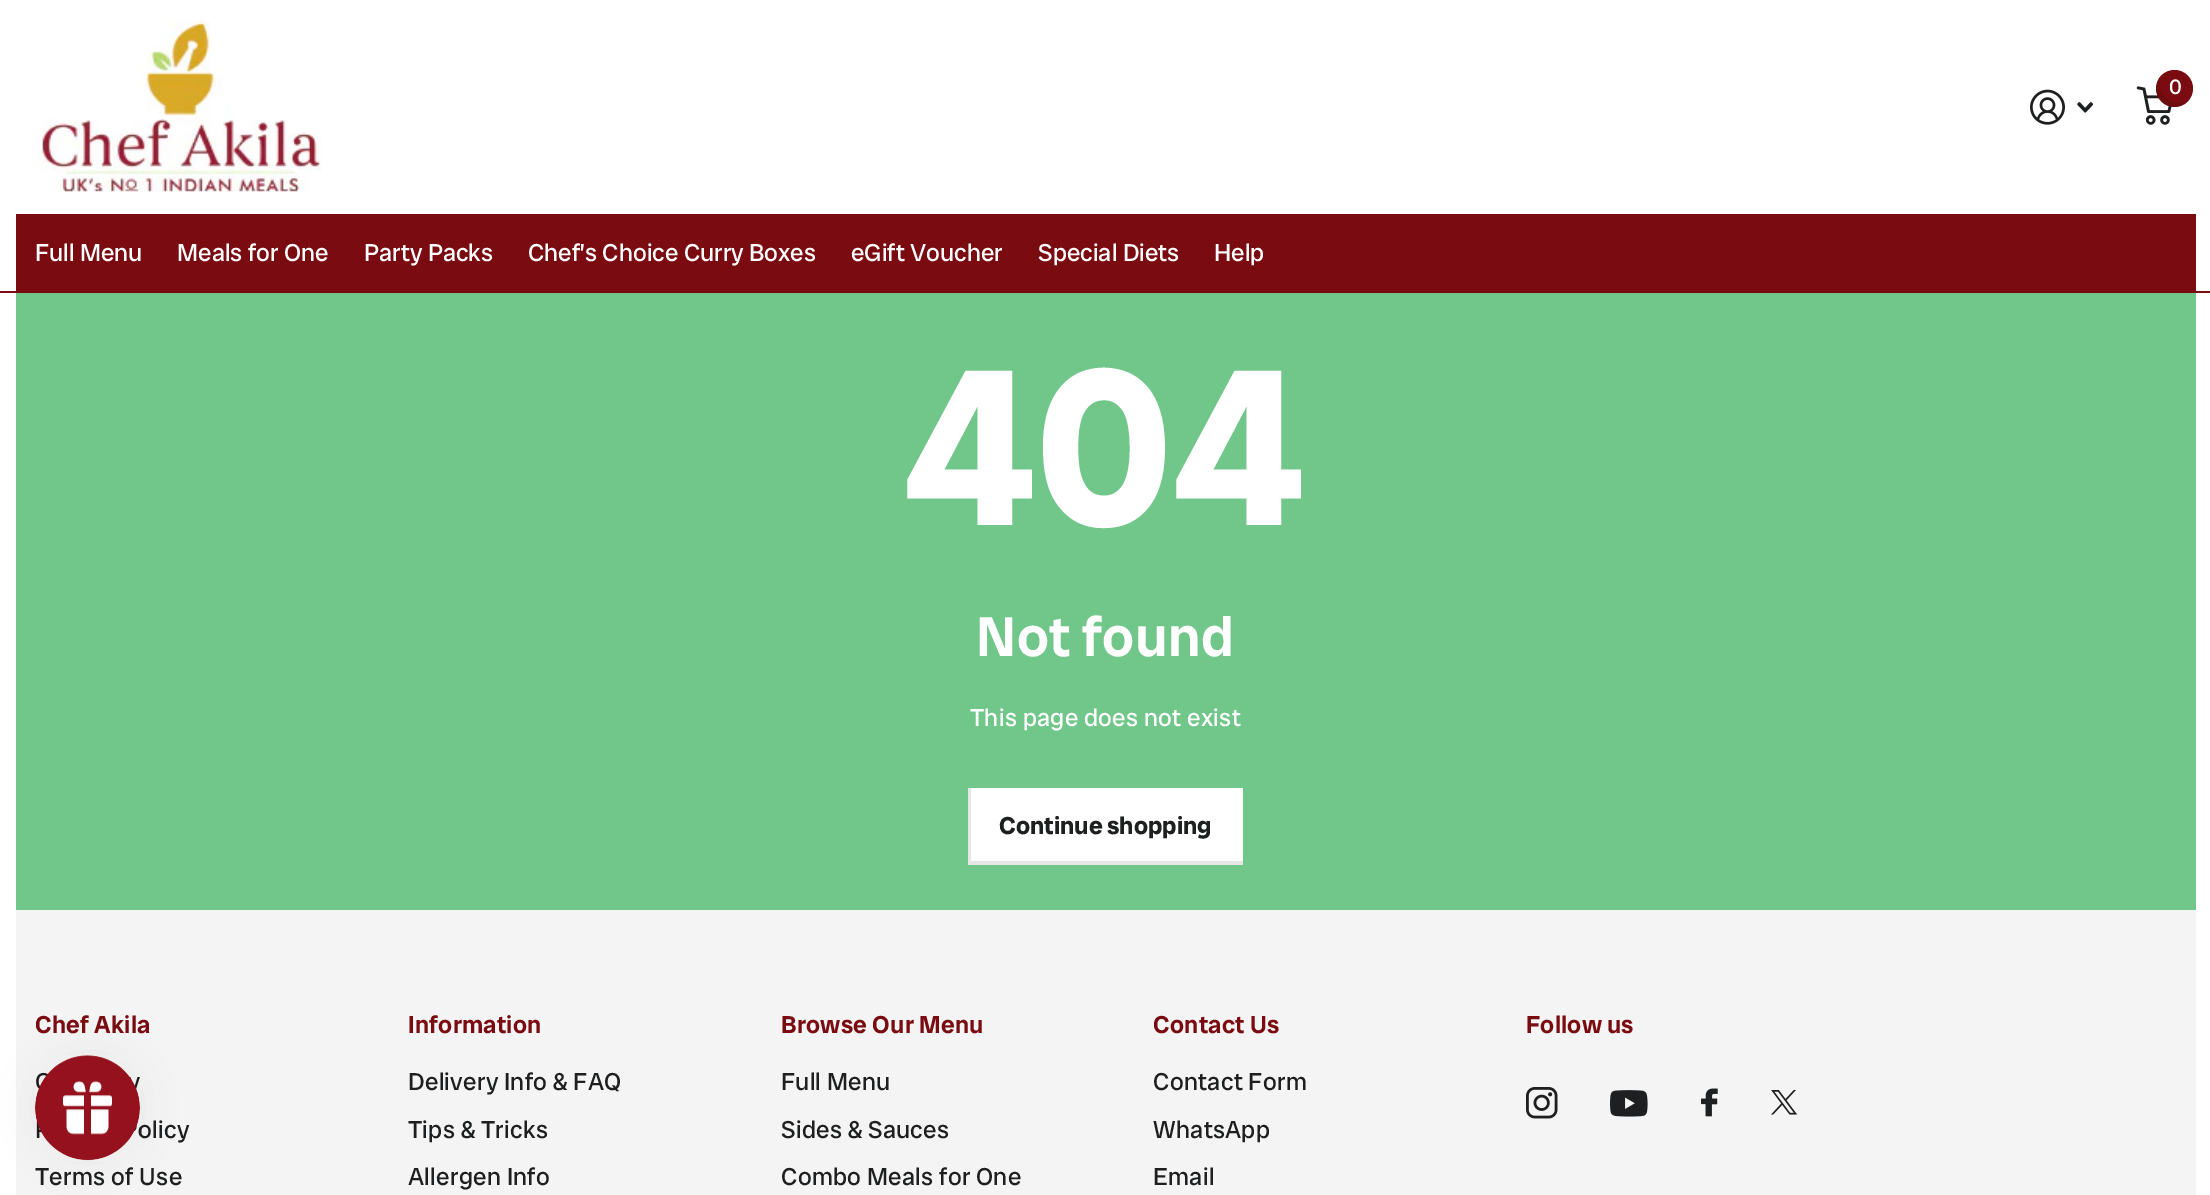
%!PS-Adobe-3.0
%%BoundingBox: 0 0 2210 1195
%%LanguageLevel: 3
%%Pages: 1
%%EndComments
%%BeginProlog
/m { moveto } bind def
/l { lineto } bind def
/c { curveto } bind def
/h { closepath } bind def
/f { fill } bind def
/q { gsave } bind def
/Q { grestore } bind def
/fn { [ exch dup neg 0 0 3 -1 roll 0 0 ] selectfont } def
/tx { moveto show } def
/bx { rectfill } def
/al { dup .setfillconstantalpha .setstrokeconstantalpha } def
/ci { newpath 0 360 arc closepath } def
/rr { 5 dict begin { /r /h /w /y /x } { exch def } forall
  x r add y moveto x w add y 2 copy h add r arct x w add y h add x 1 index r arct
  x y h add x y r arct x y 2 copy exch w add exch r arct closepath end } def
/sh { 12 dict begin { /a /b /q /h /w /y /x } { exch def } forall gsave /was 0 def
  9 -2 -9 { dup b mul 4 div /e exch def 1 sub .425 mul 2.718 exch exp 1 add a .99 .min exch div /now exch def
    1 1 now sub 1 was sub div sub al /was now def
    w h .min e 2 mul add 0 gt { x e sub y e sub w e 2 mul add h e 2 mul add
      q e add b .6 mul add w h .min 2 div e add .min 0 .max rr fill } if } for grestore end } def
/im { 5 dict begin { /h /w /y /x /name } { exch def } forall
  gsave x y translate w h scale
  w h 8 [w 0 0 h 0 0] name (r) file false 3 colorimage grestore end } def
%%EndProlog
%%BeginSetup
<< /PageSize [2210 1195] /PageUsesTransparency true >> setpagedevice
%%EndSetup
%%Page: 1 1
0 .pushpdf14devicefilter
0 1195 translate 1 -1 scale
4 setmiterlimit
1 setgray
0 0 2210 1195 bx
(image0.raw) 38 21 284 172 im
(image1.raw) 2136 86 36 39 im
0.478 0.047 0.067 setrgbcolor
2174.5 88.5 18.5 ci f
0.1 al
0 setgray
2190 99 m 2187 101.5 2183 103 2178 103 c 2161.5 103 2156 85 2162.5 74 c 2154.5 81 2154 94 2161.5 101.5 c 2169.5 109.5 2183.5 108.5 2190 99 c h f
/RadioCanadaBig-Regular 21 fn
1 al
1 setgray
(0) 2169 94 tx
(image2.raw) 2030 89 35 36 im
(image3.raw) 2077 102 16 11 im
0.478 0.047 0.067 setrgbcolor
16 214 2180 77 bx
/RadioCanadaBig-Regular 24.5 fn
1 setgray
(Full Menu) 35 261 tx
(Meals for One) 177 261 tx
(Party Packs) 364 261 tx
(Chef’s Choice Curry Boxes) 528 261 tx
(eGift Voucher) 851 261 tx
(Special Diets) 1038 261 tx
(Help) 1214 261 tx
0.478 0.047 0.067 setrgbcolor
0 291 2210 2 bx
0.443 0.776 0.541 setrgbcolor
16 293 2180 617 bx
/RadioCanadaBig-Bold 224 fn
1 setgray
906 525 m 0.5 0 (404) ashow
/RadioCanadaBig-SemiBold 56 fn
976 656 m 0.5 0 (Not found) ashow
/RadioCanadaBig-Regular 24.5 fn
970 726 m 0.25 0 (This page does not exist) ashow
971 788 272 73 bx
q
968 788 275 77 rectclip
0.902 setgray
794 614 m 1416 614 l 1416 1038 l 794 1038 l h 971 784 m 1246 784 l 1246 861 l 971 861 l h eofill
Q
/RadioCanadaBig-Bold 24.5 fn
0.118 0.122 0.125 setrgbcolor
(Continue shopping) 999 834 tx
0.957 setgray
16 910 2180 285 bx
/RadioCanadaBig-SemiBold 24.5 fn
0.478 0.047 0.067 setrgbcolor
35 1033 m 0.25 0 (Chef Akila) ashow
/RadioCanadaBig-Regular 24.5 fn
0.118 0.122 0.125 setrgbcolor
138 1138 m 0.25 0 (olicy) ashow
35 1185 m 0.25 0 (Terms of Use) ashow
/RadioCanadaBig-SemiBold 24.5 fn
0.478 0.047 0.067 setrgbcolor
408 1033 m 0.25 0 (Information) ashow
/RadioCanadaBig-Regular 24.5 fn
0.118 0.122 0.125 setrgbcolor
408 1090 m 0.25 0 (Delivery Info & FAQ) ashow
408 1138 m 0.25 0 (Tips & Tricks) ashow
408 1185 m 0.25 0 (Allergen Info) ashow
/RadioCanadaBig-SemiBold 24.5 fn
0.478 0.047 0.067 setrgbcolor
781 1033 m 0.25 0 (Browse Our Menu) ashow
/RadioCanadaBig-Regular 24.5 fn
0.118 0.122 0.125 setrgbcolor
781 1090 m 0.25 0 (Full Menu) ashow
781 1138 m 0.25 0 (Sides & Sauces) ashow
781 1185 m 0.25 0 (Combo Meals for One) ashow
/RadioCanadaBig-SemiBold 24.5 fn
0.478 0.047 0.067 setrgbcolor
1153 1033 m 0.25 0 (Contact Us) ashow
/RadioCanadaBig-Regular 24.5 fn
0.118 0.122 0.125 setrgbcolor
1153 1090 m 0.25 0 (Contact Form) ashow
1153 1138 m 0.25 0 (WhatsApp) ashow
1153 1185 m 0.25 0 (Email) ashow
/RadioCanadaBig-SemiBold 24.5 fn
0.478 0.047 0.067 setrgbcolor
1526 1033 m 0.25 0 (Follow us) ashow
(image4.raw) 1526 1087 32 32 im
(image5.raw) 1610 1090 38 27 im
(image6.raw) 1701 1088 17 29 im
(image7.raw) 1771 1090 27 25 im
0 setgray
35 1055 105 105 52.5 22 0.05 sh
(image8.raw) 35 1055 105 106 im
.poppdf14devicefilter showpage
%%EOF
